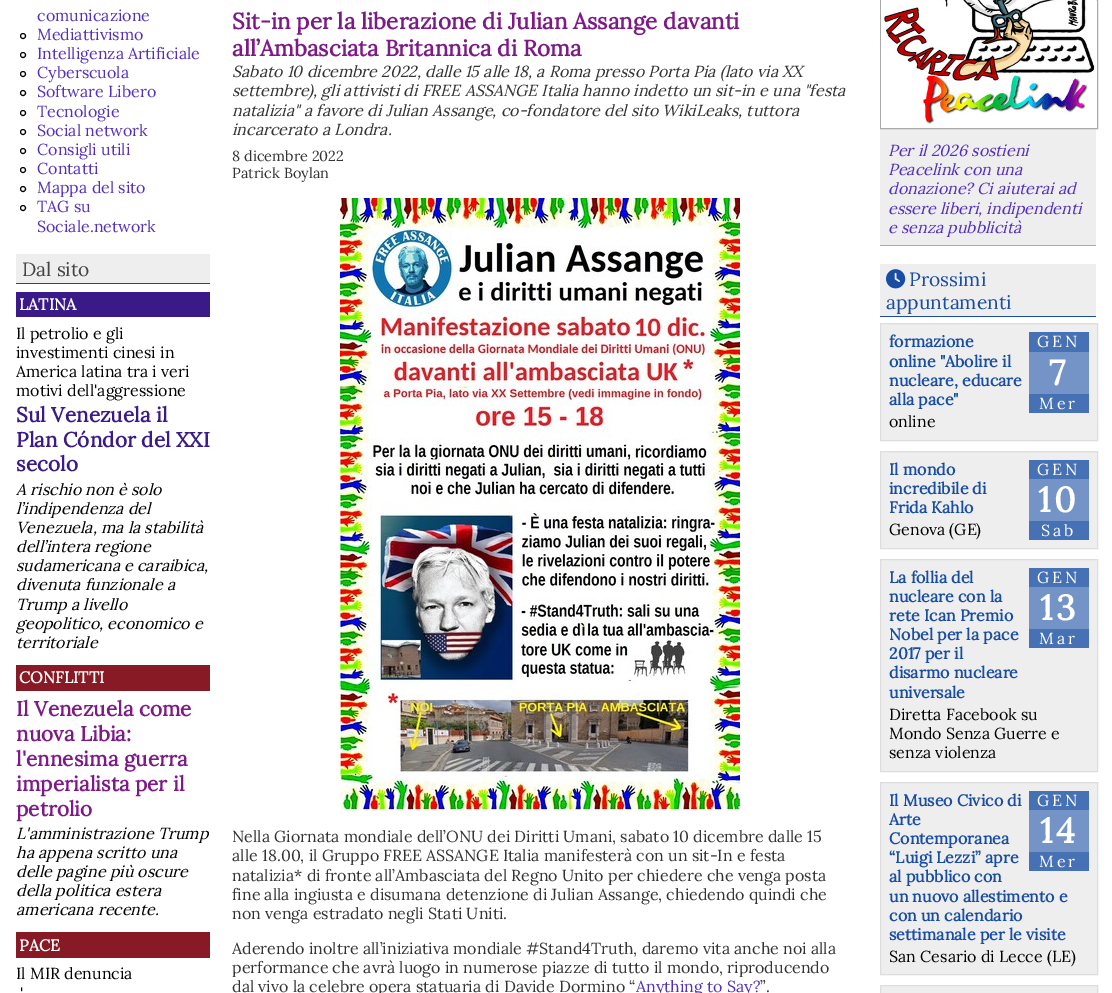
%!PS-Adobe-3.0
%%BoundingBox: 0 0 1112 993
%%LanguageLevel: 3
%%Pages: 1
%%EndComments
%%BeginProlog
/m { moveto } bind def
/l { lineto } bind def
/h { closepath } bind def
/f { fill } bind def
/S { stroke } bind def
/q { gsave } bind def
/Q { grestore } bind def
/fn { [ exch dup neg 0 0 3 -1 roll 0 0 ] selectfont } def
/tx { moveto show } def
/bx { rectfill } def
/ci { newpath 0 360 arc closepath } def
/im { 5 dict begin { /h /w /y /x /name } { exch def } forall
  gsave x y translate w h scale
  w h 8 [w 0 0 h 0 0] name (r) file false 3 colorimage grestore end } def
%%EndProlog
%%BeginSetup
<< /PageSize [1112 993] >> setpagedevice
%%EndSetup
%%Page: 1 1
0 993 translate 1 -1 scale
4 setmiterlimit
1 setgray
0 0 1112 993 bx
/Lora-Regular 16 fn
0.329 0.18 0.749 setrgbcolor
(comunicazione) 37 21 tx
0 setgray
23 36 2.5 ci S
0.329 0.18 0.749 setrgbcolor
(Mediattivismo) 37 40 tx
0 setgray
23 55 2.5 ci S
0.329 0.18 0.749 setrgbcolor
(Intelligenza Artificiale) 37 59 tx
0 setgray
23 74 2.5 ci S
0.329 0.18 0.749 setrgbcolor
(Cyberscuola) 37 78 tx
0 setgray
23 93 2.5 ci S
0.329 0.18 0.749 setrgbcolor
(Software Libero) 37 97 tx
0 setgray
23 113 2.5 ci S
0.329 0.18 0.749 setrgbcolor
(Tecnologie) 37 117 tx
0 setgray
23 132 2.5 ci S
0.329 0.18 0.749 setrgbcolor
(Social network) 37 136 tx
0 setgray
23 151 2.5 ci S
0.329 0.18 0.749 setrgbcolor
(Consigli utili) 37 155 tx
0 setgray
23 170 2.5 ci S
0.329 0.18 0.749 setrgbcolor
(Contatti) 37 174 tx
0 setgray
23 189 2.5 ci S
0.329 0.18 0.749 setrgbcolor
(Mappa del sito) 37 193 tx
0 setgray
23 208 2.5 ci S
0.329 0.18 0.749 setrgbcolor
(TAG su) 37 212 tx
(Sociale.network) 37 232 tx
0.933 setgray
16 254 194 29 bx
0.267 setgray
16 283 194 1 bx
/Lora-Regular 19.25 fn
(Dal sito) 22 276 tx
0.224 0.102 0.533 setrgbcolor
16 292 194 25 bx
/Lora-Bold 16 fn
1 setgray
(LATINA) 19 310 tx
/Lora-Regular 16 fn
0 setgray
(Il petrolio e gli) 16 339 tx
(investimenti cinesi in) 16 358 tx
(America latina tra i veri) 16 377 tx
(motivi dell'aggressione) 16 396 tx
/Lora-Bold 20.75 fn
0.224 0.102 0.533 setrgbcolor
(Sul Venezuela il) 16 422 tx
(Plan Cóndor del XXI) 16 447 tx
(secolo) 16 471 tx
/Lora-Italic 16 fn
0 setgray
(A rischio non è solo) 16 495 tx
(l’indipendenza del) 16 514 tx
(Venezuela, ma la stabilità) 16 533 tx
(dell’intera regione) 16 552 tx
(sudamericana e caraibica,) 16 571 tx
(divenuta funzionale a) 16 590 tx
(Trump a livello) 16 610 tx
(geopolitico, economico e) 16 629 tx
(territoriale) 16 648 tx
0.533 0.102 0.145 setrgbcolor
16 665 194 26 bx
/Lora-Bold 16 fn
1 setgray
(CONFLITTI) 19 683 tx
/Lora-Bold 20.75 fn
0.49 0.102 0.533 setrgbcolor
(Il Venezuela come) 16 716 tx
(nuova Libia:) 16 741 tx
(l'ennesima guerra) 16 766 tx
(imperialista per il) 16 791 tx
(petrolio) 16 816 tx
/Lora-Italic 16 fn
0 setgray
(L'amministrazione Trump) 16 839 tx
(ha appena scritto una) 16 858 tx
(delle pagine più oscure) 16 877 tx
(della politica estera) 16 896 tx
(americana recente.) 16 915 tx
0.533 0.102 0.145 setrgbcolor
16 932 194 26 bx
/Lora-Bold 16 fn
1 setgray
(PACE) 19 951 tx
/Lora-Regular 16 fn
0 setgray
(Il MIR denuncia) 16 979 tx
(') 20 999 tx
/Lora-Bold 22.4 fn
0.49 0.102 0.533 setrgbcolor
(Sit-in per la liberazione di Julian Assange davanti) 232 29 tx
(all’Ambasciata Britannica di Roma) 232 56 tx
/Lora-Italic 16 fn
0.2 setgray
(Sabato 10 dicembre 2022, dalle 15 alle 18, a Roma presso Porta Pia \(lato via XX) 232 77 tx
(settembre\), gli attivisti di FREE ASSANGE Italia hanno indetto un sit-in e una "festa) 232 96 tx
(natalizia" a favore di Julian Assange, co-fondatore del sito WikiLeaks, tuttora) 232 116 tx
(incarcerato a Londra.) 232 135 tx
/Lora-Regular 14.5 fn
(8 dicembre 2022) 232 161 tx
(Patrick Boylan) 232 178 tx
(image0.raw) 340 198 400 613 im
/Lora-Regular 16 fn
(Nella Giornata mondiale dell’ONU dei Diritti Umani, sabato 10 dicembre dalle 15) 232 842 tx
(alle 18.00, il Gruppo FREE ASSANGE Italia manifesterà con un sit-In e festa) 232 861 tx
(natalizia* di fronte all’Ambasciata del Regno Unito per chiedere che venga posta) 232 881 tx
(fine alla ingiusta e disumana detenzione di Julian Assange, chiedendo quindi che) 232 900 tx
(non venga estradato negli Stati Uniti.) 232 919 tx
(Aderendo inoltre all’iniziativa mondiale #Stand4Truth, daremo vita anche noi alla) 232 954 tx
(performance che avrà luogo in numerose piazze di tutto il mondo, riproducendo) 232 973 tx
(dal vivo la celebre opera statuaria di Davide Dormino “) 232 992 tx
0.329 0.18 0.749 setrgbcolor
(Anything to Say?) 636 992 tx
0.2 setgray
(”.) 760 992 tx
0.933 setgray
880 129 216 116 bx
0.667 setgray
880 245 216 1 bx
880.5 -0.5 217 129 rectstroke
(image1.raw) 881 0 215 128 im
/Lora-Italic 16 fn
0.329 0.18 0.749 setrgbcolor
(Per il 2026 sostieni) 888 156 tx
(Peacelink con una) 888 175 tx
(donazione? Ci aiuterai ad) 888 194 tx
(essere liberi, indipendenti) 888 214 tx
(e senza pubblicità) 888 233 tx
0.933 setgray
880 264 216 52 bx
0.094 0.302 0.639 setrgbcolor
880 316 216 1 bx
(image2.raw) 886 269 20 20 im
/Lora-Regular 19.25 fn
(Prossimi) 909 286 tx
(appuntamenti) 886 309 tx
0.933 setgray
880.5 323.5 m 1097.5 323.5 l 1097.5 440.5 l 880.5 440.5 l h q f Q
0.867 setgray
S
/Lora-Bold 16 fn
0.094 0.302 0.639 setrgbcolor
(formazione) 889 347 tx
(online "Abolire il) 889 367 tx
(nucleare, educare) 889 386 tx
(alla pace") 889 405 tx
0.275 0.443 0.71 setrgbcolor
1029 332 60 20 bx
/Lora-Regular 16 fn
1 setgray
1037 347 m 3 0 (GEN) ashow
0.455 0.58 0.784 setrgbcolor
1029 352 60 42 bx
/Lora-Bold 35 fn
1 setgray
1049 385 m 3 0 (7) ashow
0.275 0.443 0.71 setrgbcolor
1029 394 60 19 bx
/Lora-Regular 16 fn
1 setgray
1039 409 m 3 0 (Mer) ashow
0 setgray
(online) 889 427 tx
0.933 setgray
880.5 451.5 m 1097.5 451.5 l 1097.5 548.5 l 880.5 548.5 l h q f Q
0.867 setgray
S
/Lora-Bold 16 fn
0.094 0.302 0.639 setrgbcolor
(Il mondo) 889 475 tx
(incredibile di) 889 494 tx
(Frida Kahlo) 889 513 tx
0.275 0.443 0.71 setrgbcolor
1029 460 60 19 bx
/Lora-Regular 16 fn
1 setgray
1037 475 m 3 0 (GEN) ashow
0.455 0.58 0.784 setrgbcolor
1029 479 60 42 bx
/Lora-Bold 35 fn
1 setgray
1038 512 m 3 0 (10) ashow
0.275 0.443 0.71 setrgbcolor
1029 521 60 19 bx
/Lora-Regular 16 fn
1 setgray
1041 536 m 3 0 (Sab) ashow
0 setgray
(Genova \(GE\)) 889 535 tx
0.933 setgray
880.5 559.5 m 1097.5 559.5 l 1097.5 771.5 l 880.5 771.5 l h q f Q
0.867 setgray
S
/Lora-Bold 16 fn
0.094 0.302 0.639 setrgbcolor
(La follia del) 889 583 tx
(nucleare con la) 889 602 tx
(rete Ican Premio) 889 621 tx
(Nobel per la pace) 889 640 tx
(2017 per il) 889 659 tx
(disarmo nucleare) 889 678 tx
(universale) 889 698 tx
0.275 0.443 0.71 setrgbcolor
1029 568 60 19 bx
/Lora-Regular 16 fn
1 setgray
1037 583 m 3 0 (GEN) ashow
0.455 0.58 0.784 setrgbcolor
1029 587 60 42 bx
/Lora-Bold 35 fn
1 setgray
1040 620 m 3 0 (13) ashow
0.275 0.443 0.71 setrgbcolor
1029 629 60 19 bx
/Lora-Regular 16 fn
1 setgray
1039 644 m 3 0 (Mar) ashow
0 setgray
(Diretta Facebook su) 889 720 tx
(Mondo Senza Guerre e) 889 739 tx
(senza violenza) 889 758 tx
0.933 setgray
880.5 782.5 m 1097.5 782.5 l 1097.5 974.5 l 880.5 974.5 l h q f Q
0.867 setgray
S
/Lora-Bold 16 fn
0.094 0.302 0.639 setrgbcolor
(Il Museo Civico di) 889 806 tx
(Arte) 889 825 tx
(Contemporanea) 889 844 tx
(“Luigi Lezzi” apre) 889 863 tx
(al pubblico con) 889 882 tx
(un nuovo allestimento e) 889 902 tx
(con un calendario) 889 921 tx
(settimanale per le visite) 889 940 tx
0.275 0.443 0.71 setrgbcolor
1029 791 60 19 bx
/Lora-Regular 16 fn
1 setgray
1037 806 m 3 0 (GEN) ashow
0.455 0.58 0.784 setrgbcolor
1029 810 60 42 bx
/Lora-Bold 35 fn
1 setgray
1040 843 m 3 0 (14) ashow
0.275 0.443 0.71 setrgbcolor
1029 852 60 19 bx
/Lora-Regular 16 fn
1 setgray
1039 867 m 3 0 (Mer) ashow
0 setgray
(San Cesario di Lecce \(LE\)) 889 962 tx
0.933 setgray
880.5 985.5 m 1097.5 985.5 l 1097.5 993.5 l 880.5 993.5 l h q f Q
0.867 setgray
S
showpage
%%EOF
